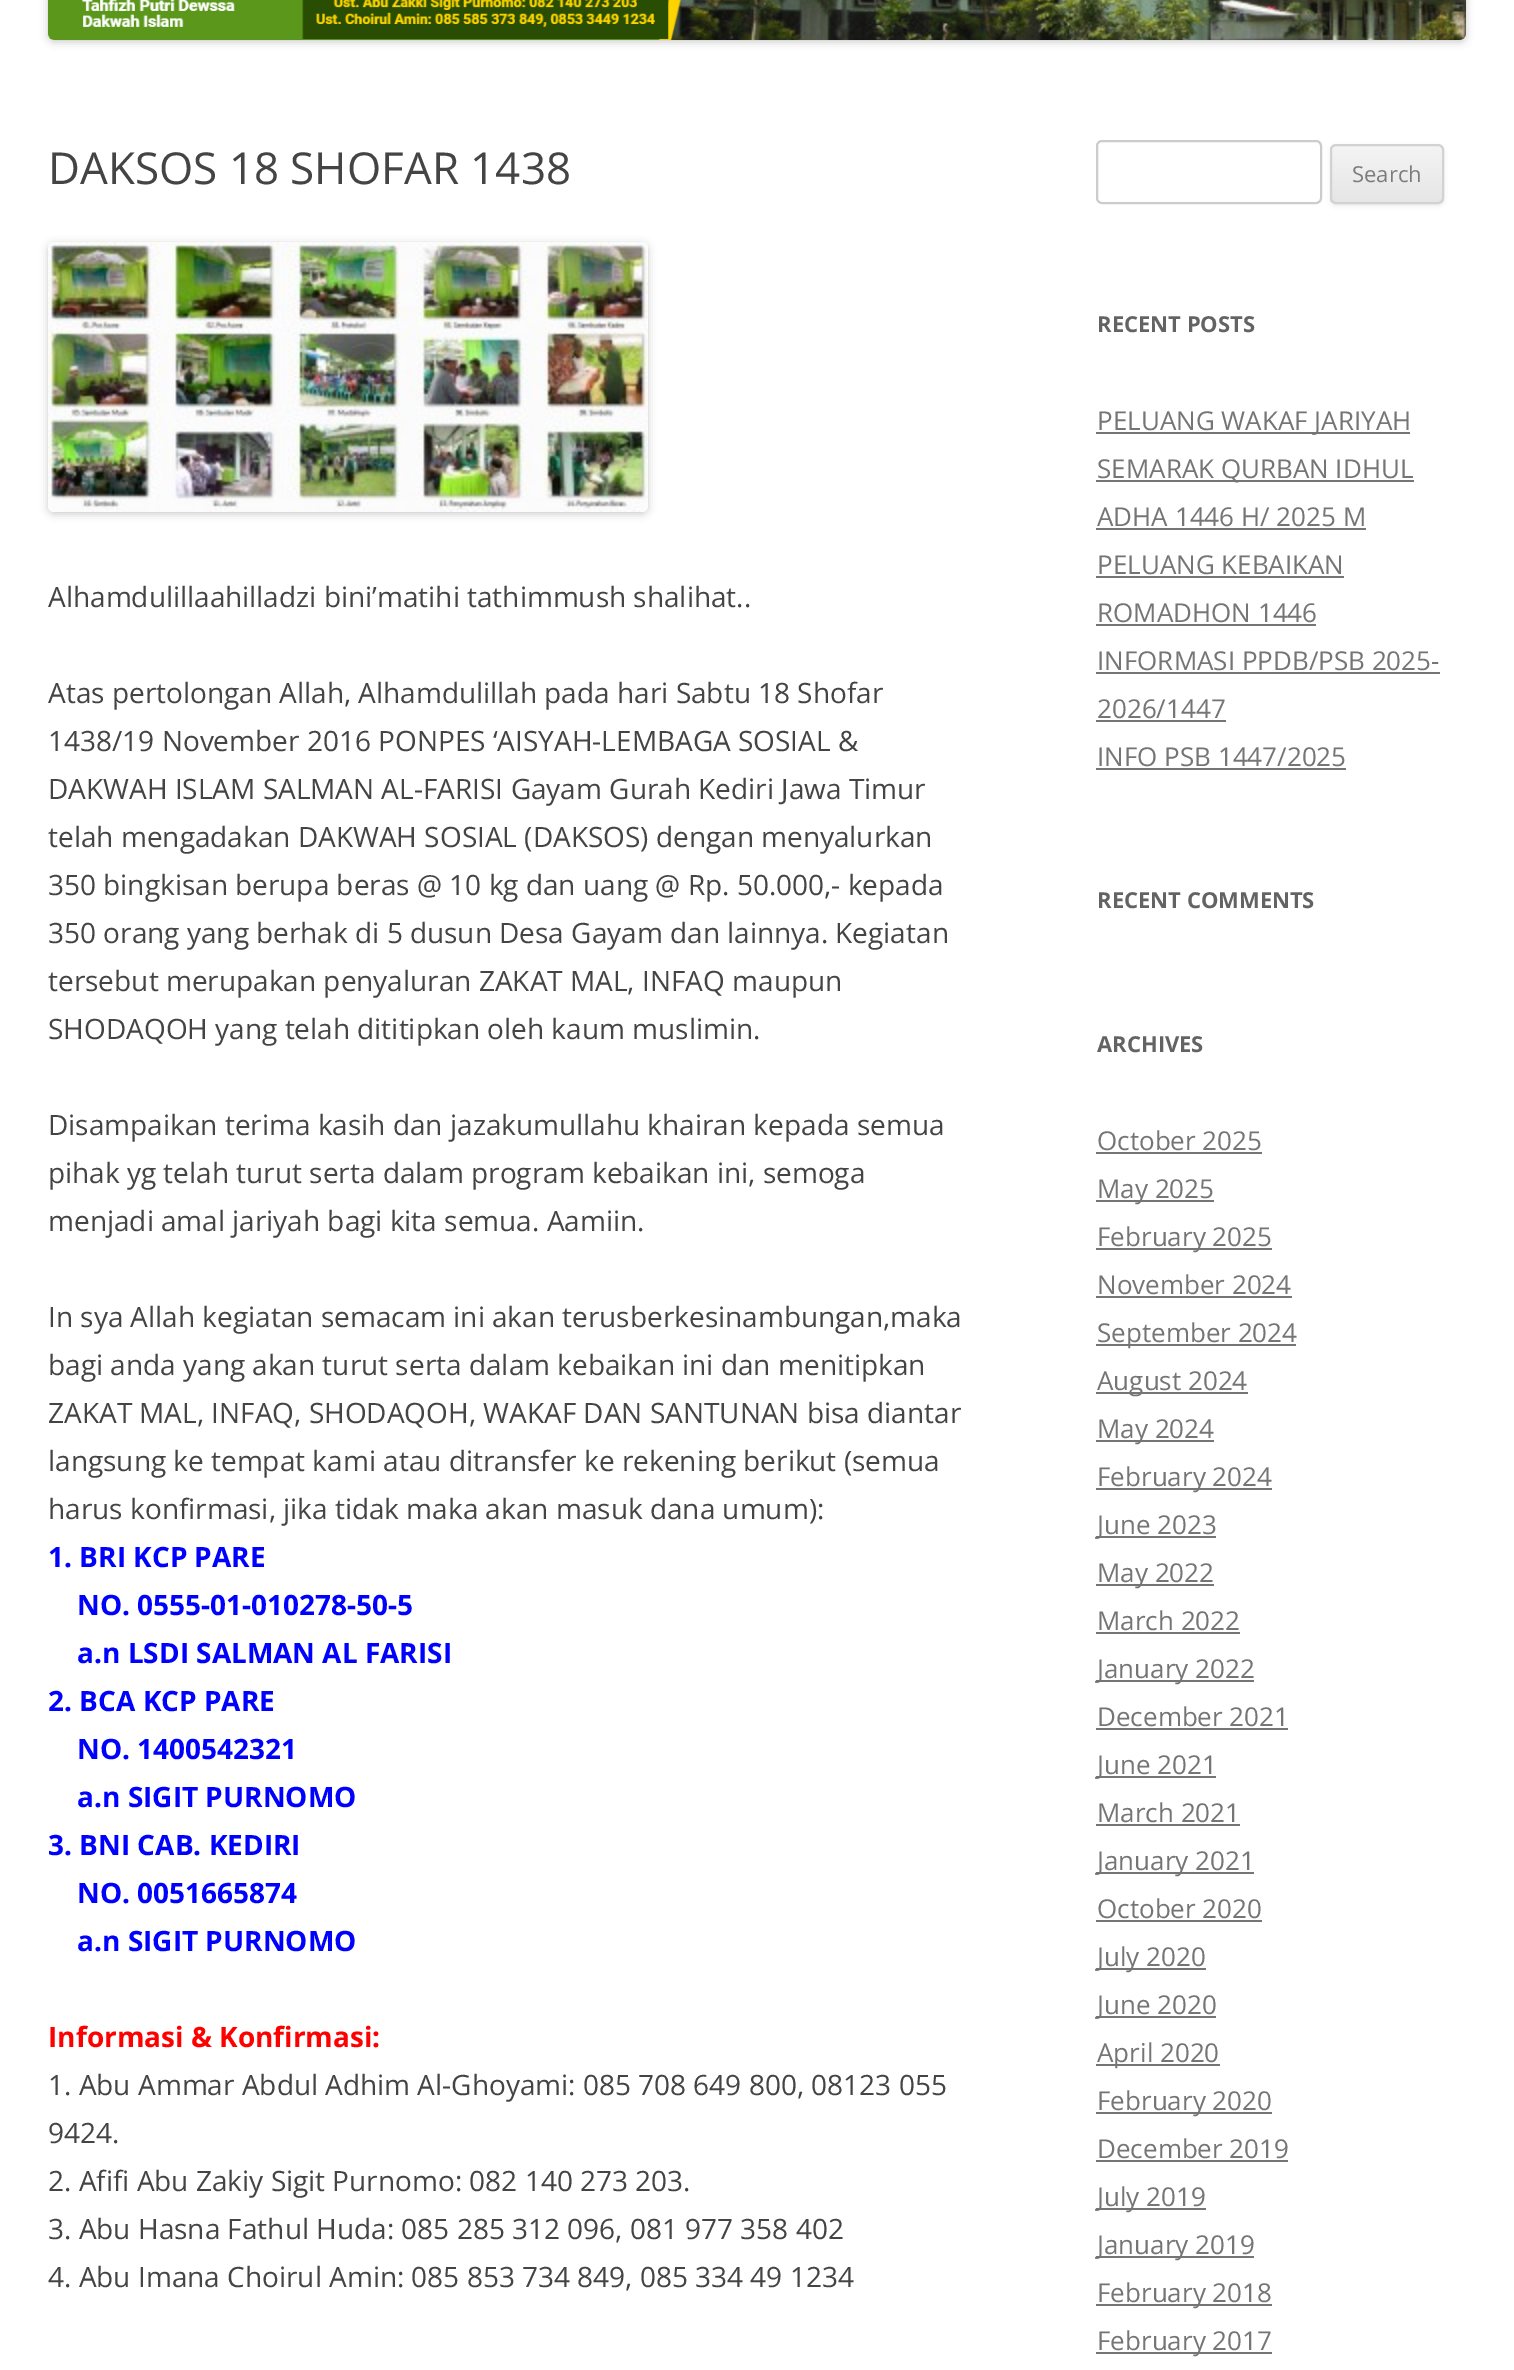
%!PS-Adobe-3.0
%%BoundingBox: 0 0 1514 2370
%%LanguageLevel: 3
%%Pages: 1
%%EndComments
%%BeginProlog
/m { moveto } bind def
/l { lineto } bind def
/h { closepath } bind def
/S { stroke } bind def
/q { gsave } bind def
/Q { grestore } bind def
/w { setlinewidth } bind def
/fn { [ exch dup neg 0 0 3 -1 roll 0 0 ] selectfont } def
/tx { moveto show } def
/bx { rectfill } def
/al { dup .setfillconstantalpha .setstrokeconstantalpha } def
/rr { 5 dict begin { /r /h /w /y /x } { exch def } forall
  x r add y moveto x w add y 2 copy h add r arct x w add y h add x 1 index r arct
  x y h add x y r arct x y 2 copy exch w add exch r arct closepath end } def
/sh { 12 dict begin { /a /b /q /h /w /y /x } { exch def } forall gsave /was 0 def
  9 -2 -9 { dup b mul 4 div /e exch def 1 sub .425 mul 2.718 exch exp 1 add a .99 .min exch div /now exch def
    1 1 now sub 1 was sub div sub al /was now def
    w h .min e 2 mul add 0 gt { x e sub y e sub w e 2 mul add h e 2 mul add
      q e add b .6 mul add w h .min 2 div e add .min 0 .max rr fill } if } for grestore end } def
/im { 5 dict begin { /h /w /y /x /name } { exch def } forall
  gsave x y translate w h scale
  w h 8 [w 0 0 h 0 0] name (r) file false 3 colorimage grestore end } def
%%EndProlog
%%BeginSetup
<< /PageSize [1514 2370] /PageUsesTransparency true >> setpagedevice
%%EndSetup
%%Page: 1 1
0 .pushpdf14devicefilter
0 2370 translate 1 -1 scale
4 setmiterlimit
1 setgray
0 0 1514 2370 bx
0 setgray
48 -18 1418 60 6 4 0.2 sh
(image0.raw) 48 0 1418 40 im
/OpenSans-Regular 44 fn
0.267 setgray
(DAKSOS 18 SHOFAR 1438) 48 184 tx
0 setgray
48 244 600 270 6 4 0.2 sh
(image1.raw) 48 242 600 270 im
/OpenSans-Regular 28 fn
0.267 setgray
(Alhamdulillaahilladzi bini’matihi tathimmush shalihat..) 48 607 tx
(Atas pertolongan Allah, Alhamdulillah pada hari Sabtu 18 Shofar) 48 703 tx
(1438/19 November 2016 PONPES ‘AISYAH-LEMBAGA SOSIAL &) 48 751 tx
(DAKWAH ISLAM SALMAN AL-FARISI Gayam Gurah Kediri Jawa Timur) 48 799 tx
(telah mengadakan DAKWAH SOSIAL \(DAKSOS\) dengan menyalurkan) 48 847 tx
(350 bingkisan berupa beras @ 10 kg dan uang @ Rp. 50.000,- kepada) 48 895 tx
(350 orang yang berhak di 5 dusun Desa Gayam dan lainnya. Kegiatan) 48 943 tx
(tersebut merupakan penyaluran ZAKAT MAL, INFAQ maupun) 48 991 tx
(SHODAQOH yang telah dititipkan oleh kaum muslimin.) 48 1039 tx
(Disampaikan terima kasih dan jazakumullahu khairan kepada semua) 48 1135 tx
(pihak yg telah turut serta dalam program kebaikan ini, semoga) 48 1183 tx
(menjadi amal jariyah bagi kita semua. Aamiin.) 48 1231 tx
(In sya Allah kegiatan semacam ini akan terusberkesinambungan,maka) 48 1327 tx
(bagi anda yang akan turut serta dalam kebaikan ini dan menitipkan) 48 1375 tx
(ZAKAT MAL, INFAQ, SHODAQOH, WAKAF DAN SANTUNAN bisa diantar) 48 1423 tx
(langsung ke tempat kami atau ditransfer ke rekening berikut \(semua) 48 1471 tx
(harus konfirmasi, jika tidak maka akan masuk dana umum\):) 48 1519 tx
/OpenSans-Bold 28 fn
0 0 1 setrgbcolor
(1. BRI KCP PARE) 48 1567 tx
(NO. 0555-01-010278-50-5) 77 1615 tx
(a.n LSDI SALMAN AL FARISI) 77 1663 tx
(2. BCA KCP PARE) 48 1711 tx
(NO. 1400542321) 77 1759 tx
(a.n SIGIT PURNOMO) 77 1807 tx
(3. BNI CAB. KEDIRI) 48 1855 tx
(NO. 0051665874) 77 1903 tx
(a.n SIGIT PURNOMO) 77 1951 tx
1 0 0 setrgbcolor
(Informasi & Konfirmasi:) 48 2047 tx
/OpenSans-Regular 28 fn
0.267 setgray
(1. Abu Ammar Abdul Adhim Al-Ghoyami: 085 708 649 800, 08123 055) 48 2095 tx
(9424.) 48 2143 tx
(2. Afifi Abu Zakiy Sigit Purnomo: 082 140 273 203.) 48 2191 tx
(3. Abu Hasna Fathul Huda: 085 285 312 096, 081 977 358 402) 48 2239 tx
(4. Abu Imana Choirul Amin: 085 853 734 849, 085 334 49 1234) 48 2287 tx
0.8 setgray
2 w
1097 141 224 62 5 rr S
0.251 setgray
1330 146 114 60 6 2 0.1 sh
q
1330 144 114 60 6 rr clip newpath
q 1330 146 m 1444 146 l 1444 202 l 1330 202 l h clip newpath
<< /ShadingType 2 /ColorSpace /DeviceRGB /Coords [1387 146 1387 202] /Extend [true true] /Function << /FunctionType 2 /Domain [0 1] /C0 [0.957 0.957 0.957] /C1 [0.902 0.902 0.902] /N 1 >> >> shfill Q
Q
0.824 setgray
1331 145 112 58 5 rr S
/OpenSans-Regular 22 fn
0.486 setgray
(Search) 1352 182 tx
/OpenSans-Bold 22 fn
0.388 setgray
(RECENT POSTS) 1097 332 tx
0.459 setgray
1096 432 314 2 bx
/OpenSans-Regular 26 fn
(PELUANG WAKAF JARIYAH) 1097 430 tx
1096 480 318 2 bx
(SEMARAK QURBAN IDHUL) 1097 478 tx
(ADHA 1446 H/ 2025 M) 1097 526 tx
1096 528 270 2 bx
(PELUANG KEBAIKAN) 1097 574 tx
1096 576 248 2 bx
(ROMADHON 1446) 1097 622 tx
1096 624 220 2 bx
(INFORMASI PPDB/PSB 2025-) 1097 670 tx
1096 672 344 2 bx
(2026/1447) 1097 718 tx
1096 720 130 2 bx
(INFO PSB 1447/2025) 1097 766 tx
1096 768 250 2 bx
/OpenSans-Bold 22 fn
0.388 setgray
(RECENT COMMENTS) 1097 908 tx
(ARCHIVES) 1097 1052 tx
/OpenSans-Regular 26 fn
0.459 setgray
(October 2025) 1097 1150 tx
1096 1152 166 2 bx
1096 1200 118 2 bx
(May 2025) 1097 1198 tx
1096 1248 176 2 bx
(February 2025) 1097 1246 tx
(November 2024) 1097 1294 tx
1096 1296 196 2 bx
1096 1344 200 2 bx
(September 2024) 1097 1342 tx
1096 1392 152 2 bx
(August 2024) 1097 1390 tx
1096 1440 118 2 bx
(May 2024) 1097 1438 tx
1096 1488 176 2 bx
(February 2024) 1097 1486 tx
1096 1536 120 2 bx
(June 2023) 1097 1534 tx
1096 1584 118 2 bx
(May 2022) 1097 1582 tx
(March 2022) 1097 1630 tx
1096 1632 144 2 bx
1096 1680 158 2 bx
(January 2022) 1097 1678 tx
(December 2021) 1097 1726 tx
1096 1728 192 2 bx
1096 1776 120 2 bx
(June 2021) 1097 1774 tx
(March 2021) 1097 1822 tx
1096 1824 144 2 bx
1096 1872 158 2 bx
(January 2021) 1097 1870 tx
(October 2020) 1097 1918 tx
1096 1920 166 2 bx
1096 1968 110 2 bx
(July 2020) 1097 1966 tx
1096 2016 120 2 bx
(June 2020) 1097 2014 tx
1096 2064 124 2 bx
(April 2020) 1097 2062 tx
1096 2112 176 2 bx
(February 2020) 1097 2110 tx
(December 2019) 1097 2158 tx
1096 2160 192 2 bx
1096 2208 110 2 bx
(July 2019) 1097 2206 tx
1096 2256 158 2 bx
(January 2019) 1097 2254 tx
1096 2304 176 2 bx
(February 2018) 1097 2302 tx
1096 2352 176 2 bx
(February 2017) 1097 2350 tx
.poppdf14devicefilter showpage
%%EOF
